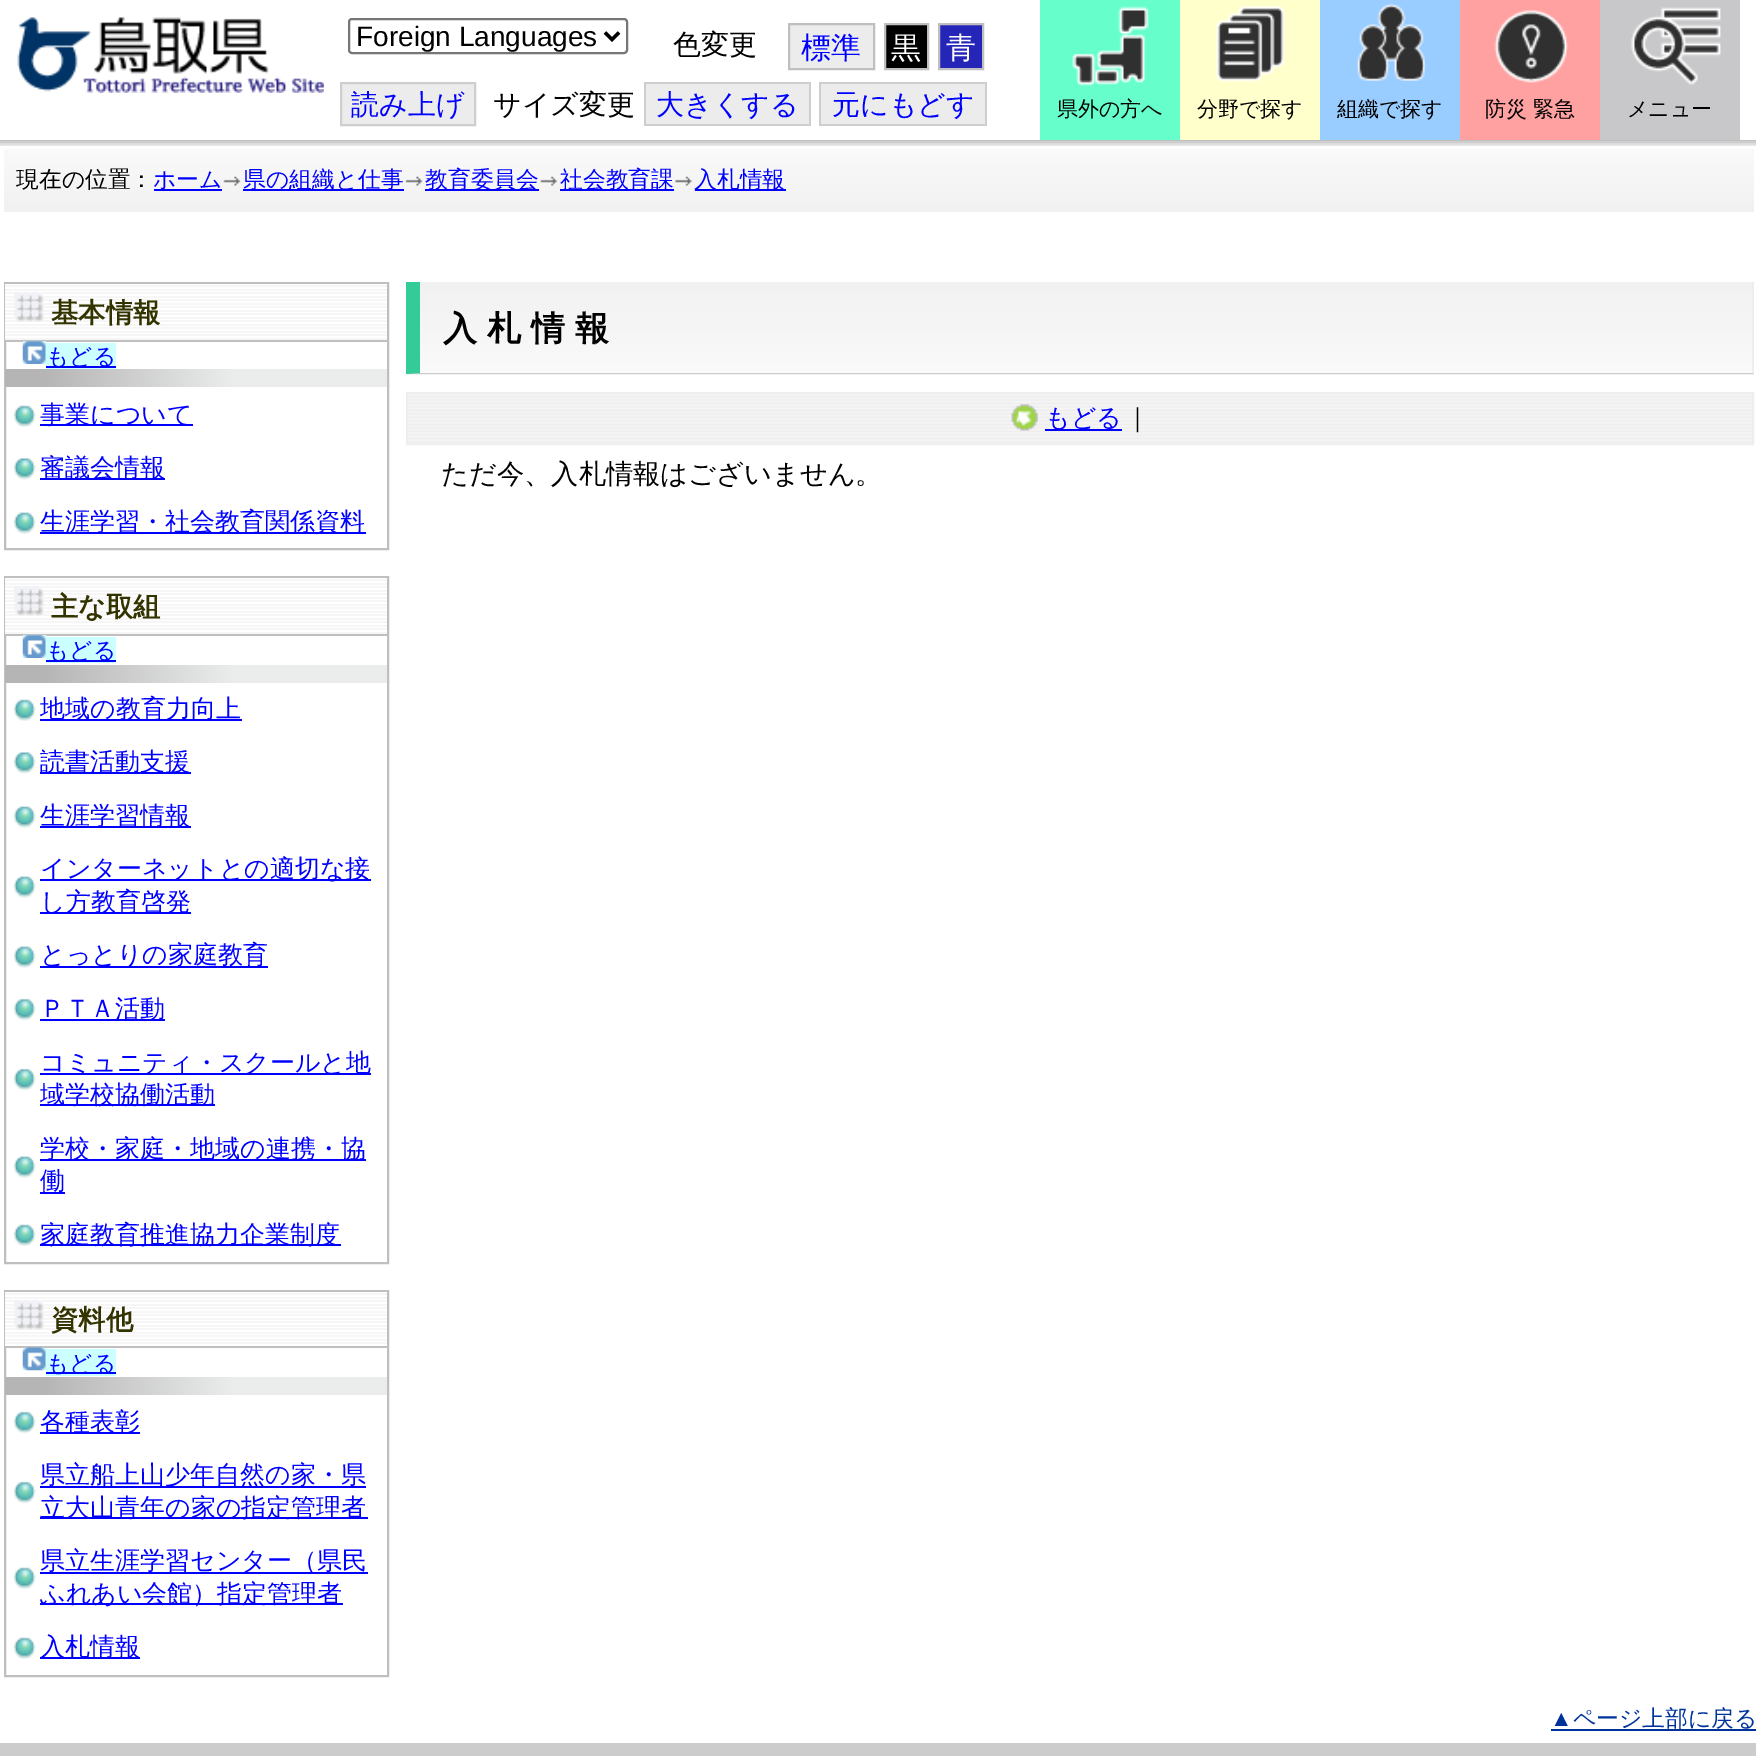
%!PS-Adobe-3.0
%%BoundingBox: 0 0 1756 1756
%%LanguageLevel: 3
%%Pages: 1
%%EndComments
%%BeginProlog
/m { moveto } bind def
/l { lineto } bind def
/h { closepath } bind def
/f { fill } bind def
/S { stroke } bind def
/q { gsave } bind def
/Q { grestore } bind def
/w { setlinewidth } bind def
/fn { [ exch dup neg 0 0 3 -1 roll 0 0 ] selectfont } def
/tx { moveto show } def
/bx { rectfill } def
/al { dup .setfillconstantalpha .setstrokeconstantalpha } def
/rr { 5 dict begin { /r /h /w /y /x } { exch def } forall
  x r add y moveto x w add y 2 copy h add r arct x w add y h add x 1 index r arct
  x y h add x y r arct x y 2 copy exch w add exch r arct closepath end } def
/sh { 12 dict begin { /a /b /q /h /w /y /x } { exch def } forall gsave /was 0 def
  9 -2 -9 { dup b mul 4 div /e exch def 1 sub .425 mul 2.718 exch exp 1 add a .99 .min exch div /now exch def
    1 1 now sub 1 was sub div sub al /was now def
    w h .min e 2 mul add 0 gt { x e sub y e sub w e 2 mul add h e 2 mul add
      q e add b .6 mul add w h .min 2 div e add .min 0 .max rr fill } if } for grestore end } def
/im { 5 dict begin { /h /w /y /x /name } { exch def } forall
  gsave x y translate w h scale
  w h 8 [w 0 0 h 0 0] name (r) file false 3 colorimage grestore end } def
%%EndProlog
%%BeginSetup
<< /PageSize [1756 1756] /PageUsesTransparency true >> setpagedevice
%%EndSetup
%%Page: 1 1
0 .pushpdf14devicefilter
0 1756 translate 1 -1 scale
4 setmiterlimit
1 setgray
0 0 1756 1756 bx
q 4 149 m 1754 149 l 1754 212 l 4 212 l h clip newpath
<< /ShadingType 2 /ColorSpace /DeviceRGB /Coords [879 149 879 212] /Extend [true true] /Function << /FunctionType 2 /Domain [0 1] /C0 [0.98 0.98 0.98] /C1 [0.945 0.945 0.945] /N 1 >> >> shfill Q
q
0 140 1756 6 rectclip
0 setgray
-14 2 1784 140 0 4.5 0.1 sh
-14 2 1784 140 0 4.5 0.1 sh
-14 2 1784 140 0 4.5 0.1 sh
-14 2 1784 140 0 4.5 0.1 sh
Q
(image0.raw) 17 17 307 76 im
0.463 setgray
2 w
349 19 278 34 3 rr S
0 setgray
3.5 w
605 32.5 m 612 39.5 l 619 32.5 l S
/LiberationSans-Regular 28 fn
(Foreign Languages) 356 46 tx
/WenQuanYiZenHei-Medium 28 fn
(色変更) 673 54 tx
0.925 setgray
789 24 m 874 24 l 874 69 l 789 69 l h q f Q
0.749 setgray
2 w
S
/WenQuanYiZenHei-Medium 30 fn
0 0 1 setrgbcolor
(標準) 801 58 tx
0 setgray
885 24 m 928 24 l 928 69 l 885 69 l h q f Q
0.749 setgray
S
1 setgray
(黒) 891 58 tx
0.145 0.145 0.722 setrgbcolor
939 24 m 983 24 l 983 69 l 939 69 l h q f Q
0.749 setgray
S
1 setgray
(青) 946 58 tx
0.925 setgray
341 83 m 475 83 l 475 125 l 341 125 l h q f Q
0.808 setgray
S
/WenQuanYiZenHei-Medium 28 fn
0 0 1 setrgbcolor
(読み上げ) 351 114 tx
0 setgray
(サイズ変更) 493 114 tx
0.925 setgray
646 84 163 40 bx
0 0 1 setrgbcolor
(大きくする) 656 114 tx
0.808 setgray
644 82 166 2 bx
644 124 40 2 bx
644 82 2 44 bx
809 82 2 44 bx
684 124 126 2 bx
0.925 setgray
821 84 164 40 bx
0 0 1 setrgbcolor
(元にもどす) 832 114 tx
0.808 setgray
819 82 168 2 bx
819 124 40 2 bx
819 82 2 44 bx
985 82 2 44 bx
859 124 128 2 bx
0.4 1 0.8 setrgbcolor
1040 0 140 140 bx
(image1.raw) 1072 6 77 81 im
/WenQuanYiZenHei-Medium 21 fn
0 setgray
(県外の方へ) 1057 116 tx
1 1 0.8 setrgbcolor
1180 0 140 140 bx
(image2.raw) 1216 5 69 78 im
0 setgray
(分野で探す) 1197 116 tx
0.6 0.8 1 setrgbcolor
1320 0 140 140 bx
(image3.raw) 1357 3 70 78 im
0 setgray
(組織で探す) 1337 116 tx
1 0.631 0.631 setrgbcolor
1460 0 140 140 bx
(image4.raw) 1494 10 75 73 im
0 setgray
(防災 緊急) 1485 116 tx
0.784 0.784 0.796 setrgbcolor
1600 0 140 140 bx
(image5.raw) 1630 7 91 78 im
0 setgray
(メニュー) 1627 116 tx
/WenQuanYiZenHei-Medium 22.75 fn
(現在の位置：) 16 187 tx
0 0 1 setrgbcolor
154 189 68 2 bx
(ホーム) 153 187 tx
(image6.raw) 223 176 18 10 im
243 189 161 2 bx
(県の組織と仕事) 243 187 tx
(image6.raw) 405 176 18 10 im
425 189 114 2 bx
(教育委員会) 425 187 tx
(image7.raw) 540 176 17 10 im
560 189 114 2 bx
(社会教育課) 560 187 tx
(image8.raw) 675 176 17 10 im
695 189 91 2 bx
(入札情報) 694 187 tx
0.749 setgray
5 283 383 266 rectstroke
(image9.raw) 5 284 382 56 im
5 340 382 2 bx
(image10.raw) 14 292 30 30 im
/WenQuanYiZenHei-Bold 27.25 fn
0.2 0.2 0 setrgbcolor
(基本情報) 51 322 tx
0.8 1 1 setrgbcolor
23 341 23 23 bx
(image11.raw) 22 341 24 23 im
46 343 70 26 bx
0 0 1 setrgbcolor
46 366 70 2 bx
/WenQuanYiZenHei-Medium 22.75 fn
(もどる) 46 364 tx
q 5 369 m 387 369 l 387 387 l 5 387 l h clip newpath
<< /ShadingType 2 /ColorSpace /DeviceRGB /Coords [5.2 378 387 378] /Extend [true true] /Function << /FunctionType 3 /Domain [0 1] /Functions [<< /FunctionType 2 /Domain [0 1] /C0 [0.71 0.71 0.71] /C1 [0.71 0.71 0.71] /N 1 >> << /FunctionType 2 /Domain [0 1] /C0 [0.71 0.71 0.71] /C1 [0.922 0.925 0.925] /N 1 >> << /FunctionType 2 /Domain [0 1] /C0 [0.922 0.925 0.925] /C1 [0.922 0.925 0.925] /N 1 >>] /Bounds [0.1 0.6] /Encode [0 1 0 1 0 1] >> >> shfill Q
(image12.raw) 14 405 22 22 im
40 424 153 2 bx
/WenQuanYiZenHei-Medium 25 fn
(事業について) 40 423 tx
(image13.raw) 14 458 22 22 im
40 478 125 2 bx
(審議会情報) 40 476 tx
(image14.raw) 14 512 22 22 im
40 532 326 2 bx
(生涯学習・社会教育関係資料) 40 530 tx
0.749 setgray
5 577 383 686 rectstroke
(image9.raw) 5 578 382 56 im
5 634 382 2 bx
(image10.raw) 14 586 30 30 im
/WenQuanYiZenHei-Bold 27.25 fn
0.2 0.2 0 setrgbcolor
(主な取組) 51 616 tx
0.8 1 1 setrgbcolor
23 635 23 23 bx
(image11.raw) 22 635 24 23 im
46 637 70 26 bx
0 0 1 setrgbcolor
46 660 70 2 bx
/WenQuanYiZenHei-Medium 22.75 fn
(もどる) 46 658 tx
q 5 665 m 387 665 l 387 683 l 5 683 l h clip newpath
<< /ShadingType 2 /ColorSpace /DeviceRGB /Coords [5.2 674 387 674] /Extend [true true] /Function << /FunctionType 3 /Domain [0 1] /Functions [<< /FunctionType 2 /Domain [0 1] /C0 [0.71 0.71 0.71] /C1 [0.71 0.71 0.71] /N 1 >> << /FunctionType 2 /Domain [0 1] /C0 [0.71 0.71 0.71] /C1 [0.922 0.925 0.925] /N 1 >> << /FunctionType 2 /Domain [0 1] /C0 [0.922 0.925 0.925] /C1 [0.922 0.925 0.925] /N 1 >>] /Bounds [0.1 0.6] /Encode [0 1 0 1 0 1] >> >> shfill Q
(image12.raw) 14 699 22 22 im
40 719 202 2 bx
/WenQuanYiZenHei-Medium 25 fn
(地域の教育力向上) 40 717 tx
(image13.raw) 14 752 22 22 im
40 772 151 2 bx
(読書活動支援) 40 770 tx
(image14.raw) 14 806 22 22 im
40 826 151 2 bx
(生涯学習情報) 40 824 tx
(image14.raw) 14 876 22 22 im
40 879 331 2 bx
(インターネットとの適切な接) 40 877 tx
40 912 151 2 bx
(し方教育啓発) 40 910 tx
(image14.raw) 14 946 22 22 im
40 966 228 2 bx
(とっとりの家庭教育) 40 963 tx
(image15.raw) 14 998 22 23 im
40 1019 125 2 bx
(ＰＴＡ活動) 40 1017 tx
(image15.raw) 14 1068 22 23 im
40 1073 331 2 bx
(コミュニティ・スクールと地) 40 1071 tx
40 1104 175 2 bx
(域学校協働活動) 40 1103 tx
(image14.raw) 14 1156 22 22 im
40 1159 326 2 bx
(学校・家庭・地域の連携・協) 40 1157 tx
40 1192 25 2 bx
(働) 40 1189 tx
(image12.raw) 14 1224 22 22 im
40 1244 301 2 bx
(家庭教育推進協力企業制度) 40 1243 tx
0.749 setgray
5 1291 383 385 rectstroke
(image16.raw) 5 1292 382 54 im
5 1346 382 2 bx
(image10.raw) 14 1300 30 30 im
/WenQuanYiZenHei-Bold 27.25 fn
0.2 0.2 0 setrgbcolor
(資料他) 51 1329 tx
0.8 1 1 setrgbcolor
23 1348 23 22 bx
(image17.raw) 22 1347 24 24 im
46 1349 70 27 bx
0 0 1 setrgbcolor
46 1372 70 2 bx
/WenQuanYiZenHei-Medium 22.75 fn
(もどる) 46 1371 tx
q 5 1377 m 387 1377 l 387 1395 l 5 1395 l h clip newpath
<< /ShadingType 2 /ColorSpace /DeviceRGB /Coords [5.2 1386 387 1386] /Extend [true true] /Function << /FunctionType 3 /Domain [0 1] /Functions [<< /FunctionType 2 /Domain [0 1] /C0 [0.71 0.71 0.71] /C1 [0.71 0.71 0.71] /N 1 >> << /FunctionType 2 /Domain [0 1] /C0 [0.71 0.71 0.71] /C1 [0.922 0.925 0.925] /N 1 >> << /FunctionType 2 /Domain [0 1] /C0 [0.922 0.925 0.925] /C1 [0.922 0.925 0.925] /N 1 >>] /Bounds [0.1 0.6] /Encode [0 1 0 1 0 1] >> >> shfill Q
(image15.raw) 14 1411 22 23 im
40 1432 100 2 bx
/WenQuanYiZenHei-Medium 25 fn
(各種表彰) 40 1430 tx
(image15.raw) 14 1481 22 23 im
40 1486 326 2 bx
(県立船上山少年自然の家・県) 40 1483 tx
40 1517 328 2 bx
(立大山青年の家の指定管理者) 40 1516 tx
(image12.raw) 14 1567 22 22 im
40 1572 328 2 bx
(県立生涯学習センター（県民) 40 1569 tx
40 1603 303 2 bx
(ふれあい会館）指定管理者) 40 1602 tx
(image12.raw) 14 1637 22 22 im
40 1657 100 2 bx
(入札情報) 40 1655 tx
q 420 282 m 1752 282 l 1752 373 l 420 373 l h clip newpath
<< /ShadingType 2 /ColorSpace /DeviceRGB /Coords [1086 282 1086 373] /Extend [true true] /Function << /FunctionType 2 /Domain [0 1] /C0 [0.945 0.945 0.945] /C1 [0.98 0.98 0.98] /N 1 >> >> shfill Q
q 406 373 m 1754 373 l 1754 375 l 406 375 l h clip newpath
<< /ShadingType 2 /ColorSpace /DeviceRGB /Coords [1086 373 1086 464] /Extend [true true] /Function << /FunctionType 2 /Domain [0 1] /C0 [0.945 0.945 0.945] /C1 [0.98 0.98 0.98] /N 1 >> >> shfill Q
0.933 setgray
1752 282 2 93 bx
0.8 setgray
1754 374 m 406 374 l 420 373 l 1752 373 l h f
0.2 0.8 0.6 setrgbcolor
406 374 m 406 282 l 420 282 l 420 373 l h f
/WenQuanYiZenHei-Bold 34 fn
0 setgray
443 340 m 10 0 (入札情報) ashow
(image18.raw) 408 394 1344 49 im
0.933 setgray
407 393 1346 51 rectstroke
(image19.raw) 1011 404 27 27 im
0 0 1 setrgbcolor
1045 429 77 2 bx
/WenQuanYiZenHei-Medium 25 fn
(もどる) 1045 426 tx
0 setgray
(｜) 1125 426 tx
/WenQuanYiZenHei-Medium 27.25 fn
(ただ今、入札情報はございません。) 441 483 tx
/LiberationSans-Regular 22.75 fn
0 0.2 0.6 setrgbcolor
(▲) 1550 1726 tx
1551 1729 205 2 bx
/WenQuanYiZenHei-Medium 22.75 fn
(ページ上部に戻る) 1573 1726 tx
0.8 setgray
0 1743 1756 13 bx
.poppdf14devicefilter showpage
%%EOF
